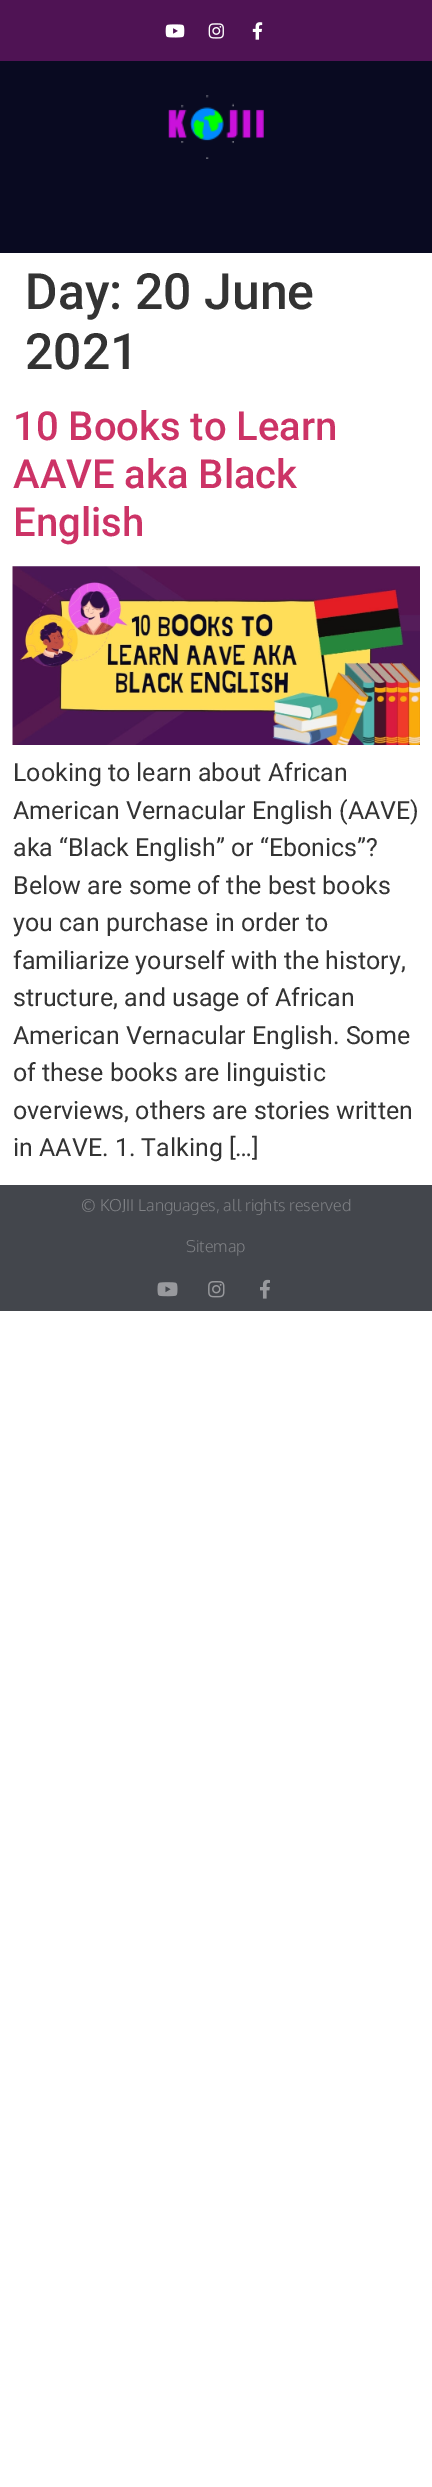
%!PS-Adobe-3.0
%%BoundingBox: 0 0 432 2487
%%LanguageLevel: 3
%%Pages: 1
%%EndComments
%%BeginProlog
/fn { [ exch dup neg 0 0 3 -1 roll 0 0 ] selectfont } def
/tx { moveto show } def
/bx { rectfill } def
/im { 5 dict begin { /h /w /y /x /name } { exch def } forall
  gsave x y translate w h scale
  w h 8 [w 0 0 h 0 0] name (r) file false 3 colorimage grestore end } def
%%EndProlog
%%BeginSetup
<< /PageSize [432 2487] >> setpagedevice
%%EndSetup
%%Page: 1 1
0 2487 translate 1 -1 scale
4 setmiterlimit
1 setgray
0 0 432 2487 bx
0.31 0.075 0.329 setrgbcolor
0 0 432 61 bx
(image0.raw) 165 24 20 14 im
(image1.raw) 208 23 16 16 im
(image2.raw) 252 22 11 18 im
0.035 0.039 0.129 setrgbcolor
0 61 432 192 bx
(image3.raw) 168 95 96 64 im
/Roboto-Medium 50 fn
0.2 setgray
(Day: 20 June) 25 309 tx
(2021) 25 369 tx
/Roboto-Medium 40 fn
0.8 0.2 0.4 setrgbcolor
(10 Books to Learn) 13 440 tx
(AAVE aka Black) 13 488 tx
(English) 13 536 tx
(image4.raw) 12 566 408 179 im
/Roboto-Regular 25 fn
0.2 setgray
(Looking to learn about African) 13 781 tx
(American Vernacular English \(AAVE\)) 13 819 tx
(aka “Black English” or “Ebonics”?) 13 856 tx
(Below are some of the best books) 13 894 tx
(you can purchase in order to) 13 931 tx
(familiarize yourself with the history,) 13 969 tx
(structure, and usage of African) 13 1006 tx
(American Vernacular English. Some) 13 1044 tx
(of these books are linguistic) 13 1081 tx
(overviews, others are stories written) 13 1119 tx
(in AAVE. 1. Talking […]) 13 1156 tx
0.263 0.275 0.298 setrgbcolor
0 1185 432 126 bx
/Oxygen-Light 16.25 fn
0.498 0.506 0.522 setrgbcolor
(© KOJII Languages, all rights reserved) 81 1211 tx
(Sitemap) 186 1252 tx
(image5.raw) 157 1282 21 15 im
(image6.raw) 208 1281 17 17 im
(image7.raw) 260 1279 10 20 im
showpage
%%EOF
